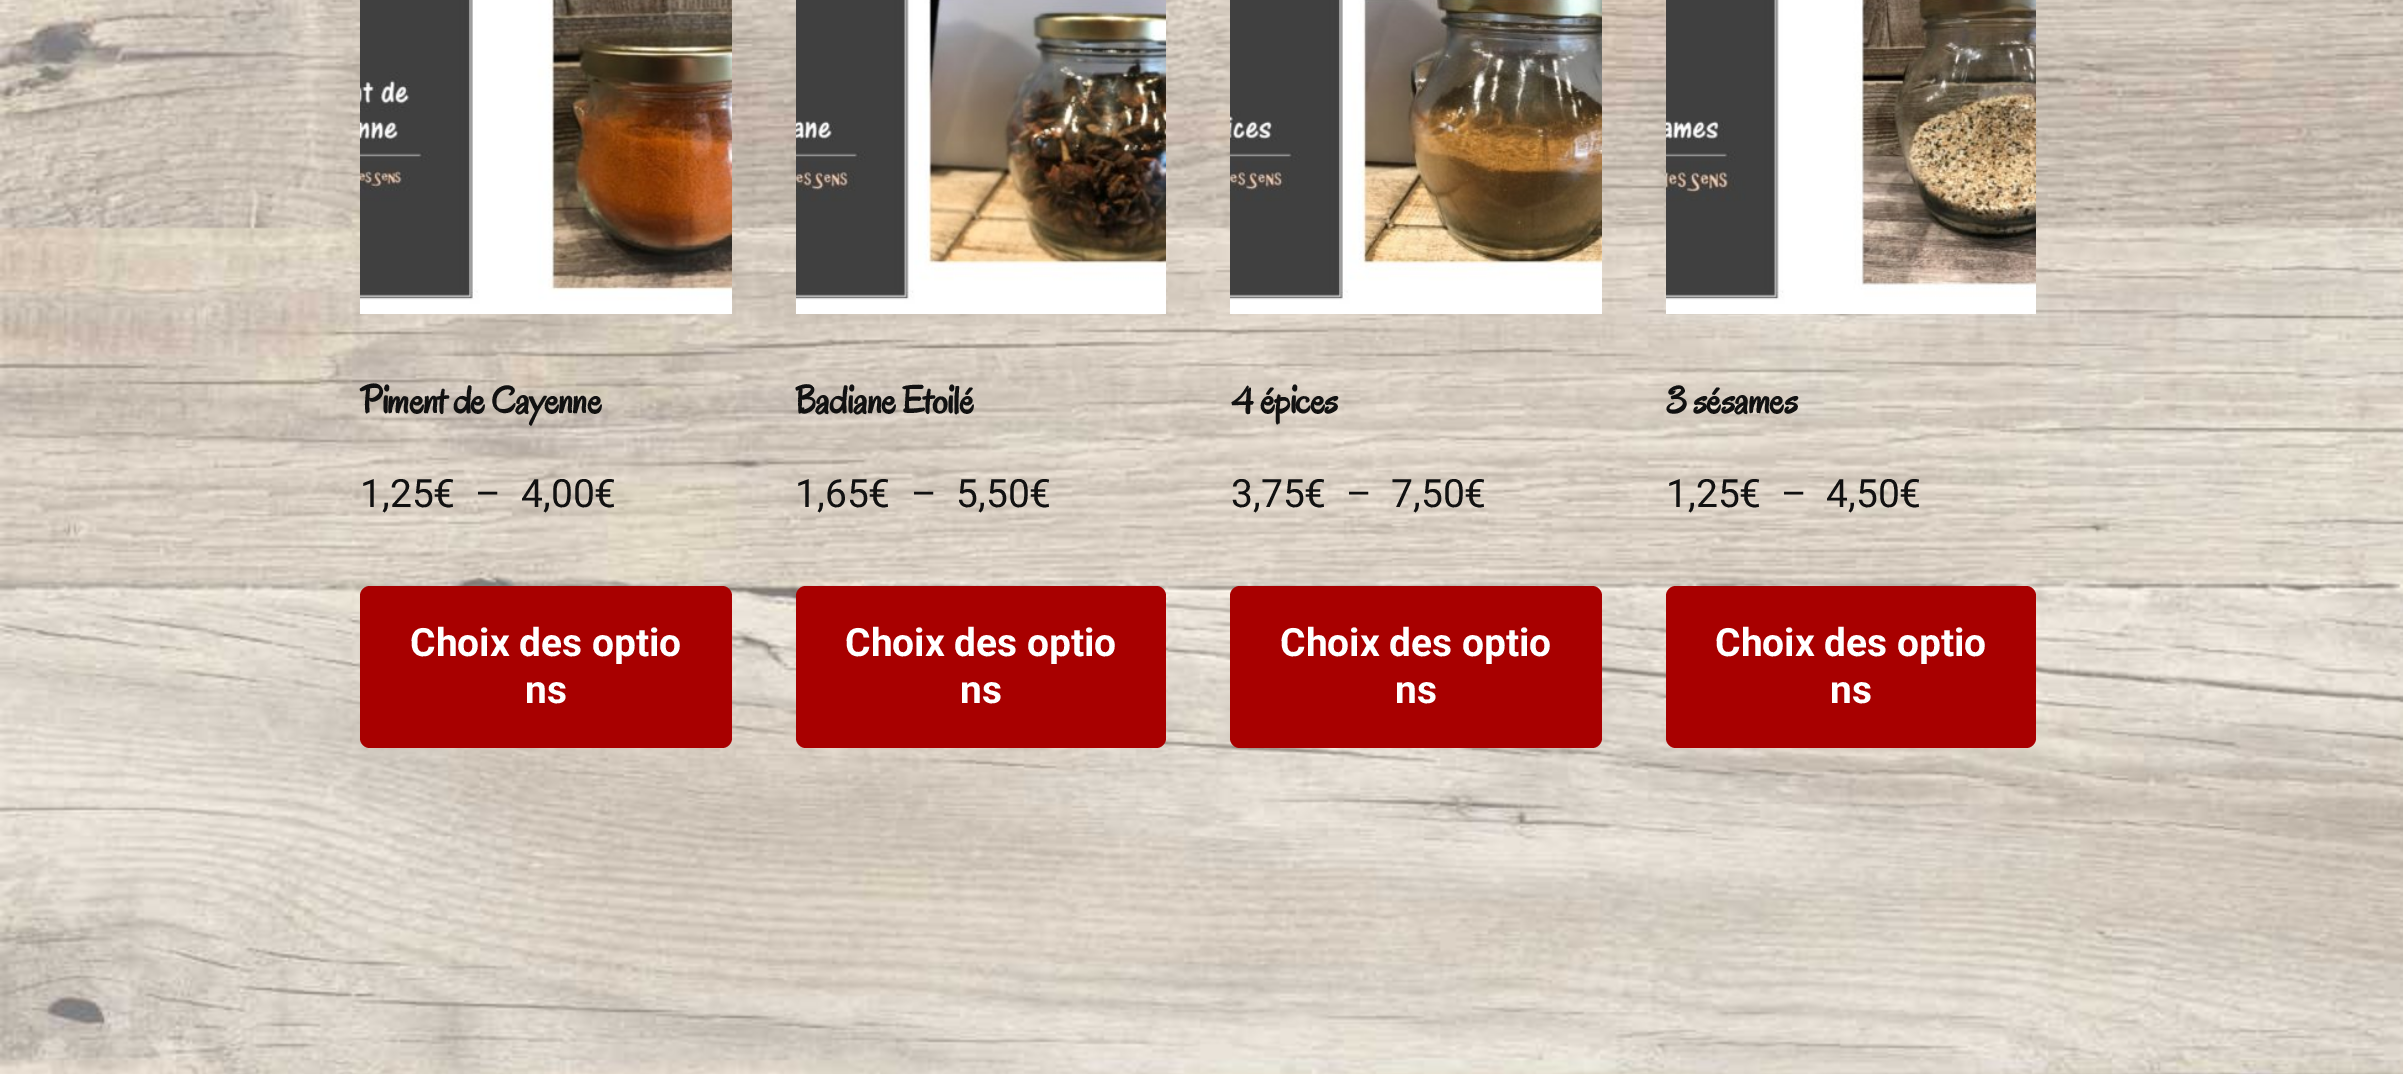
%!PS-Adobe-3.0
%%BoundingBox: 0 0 2403 1074
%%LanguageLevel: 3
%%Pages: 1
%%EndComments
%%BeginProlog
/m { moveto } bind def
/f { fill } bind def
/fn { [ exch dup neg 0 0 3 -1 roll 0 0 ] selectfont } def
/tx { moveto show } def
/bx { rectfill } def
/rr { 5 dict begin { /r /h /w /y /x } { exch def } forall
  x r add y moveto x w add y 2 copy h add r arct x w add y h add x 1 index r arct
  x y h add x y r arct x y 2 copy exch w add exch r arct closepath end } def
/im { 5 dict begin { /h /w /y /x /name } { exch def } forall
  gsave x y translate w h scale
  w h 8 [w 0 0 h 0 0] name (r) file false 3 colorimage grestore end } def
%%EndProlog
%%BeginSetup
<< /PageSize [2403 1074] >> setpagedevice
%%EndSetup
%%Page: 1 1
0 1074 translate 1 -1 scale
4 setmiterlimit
1 setgray
0 0 2403 1074 bx
(image0.raw) 0 0 2403 1074 im
(image1.raw) 360 0 372 314 im
/Oregano-Bold 39 fn
0.067 setgray
360 413 m -0.75 0 (Piment de Cayenne) ashow
/Roboto-Regular 39 fn
(1,25€) 360 507 tx
(–) 475 507 tx
(4,00€) 521 507 tx
0.659 0 0 setrgbcolor
360 586 372 162 10 rr f
/Roboto-Bold 39 fn
1 setgray
(Choix des optio) 410 656 tx
(ns) 525 703 tx
(image2.raw) 796 0 370 314 im
/Oregano-Bold 39 fn
0.067 setgray
795 413 m -0.75 0 (Badiane Etoilé) ashow
/Roboto-Regular 39 fn
(1,65€) 795 507 tx
(–) 911 507 tx
(5,50€) 956 507 tx
0.659 0 0 setrgbcolor
796 586 370 162 10 rr f
/Roboto-Bold 39 fn
1 setgray
(Choix des optio) 845 656 tx
(ns) 960 703 tx
(image3.raw) 1230 0 372 314 im
/Oregano-Bold 39 fn
0.067 setgray
1231 413 m -0.75 0 (4 épices) ashow
/Roboto-Regular 39 fn
(3,75€) 1231 507 tx
(–) 1346 507 tx
(7,50€) 1391 507 tx
0.659 0 0 setrgbcolor
1230 586 372 162 10 rr f
/Roboto-Bold 39 fn
1 setgray
(Choix des optio) 1280 656 tx
(ns) 1395 703 tx
(image4.raw) 1666 0 370 314 im
/Oregano-Bold 39 fn
0.067 setgray
1666 413 m -0.75 0 (3 sésames) ashow
/Roboto-Regular 39 fn
(1,25€) 1666 507 tx
(–) 1781 507 tx
(4,50€) 1826 507 tx
0.659 0 0 setrgbcolor
1666 586 370 162 10 rr f
/Roboto-Bold 39 fn
1 setgray
(Choix des optio) 1715 656 tx
(ns) 1830 703 tx
showpage
%%EOF
